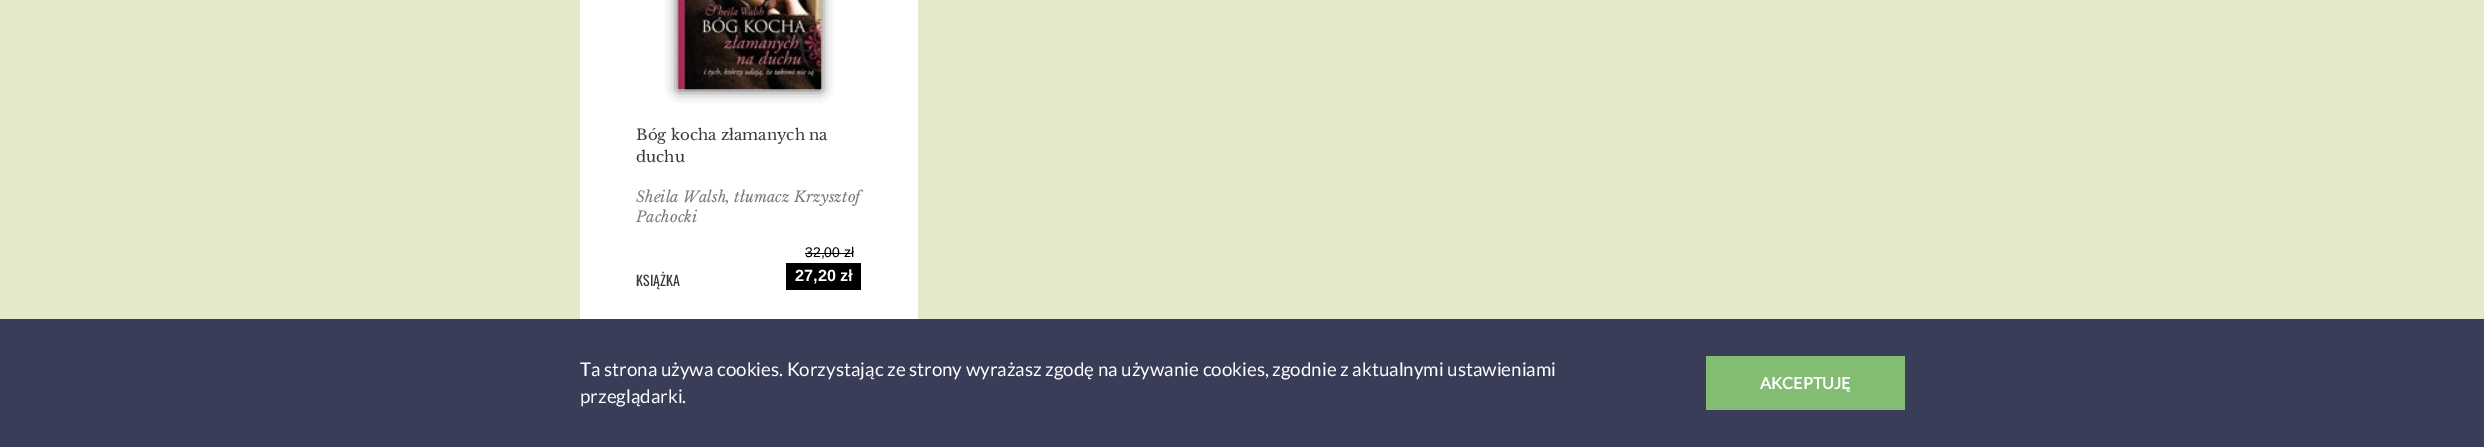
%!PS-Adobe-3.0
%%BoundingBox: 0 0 2484 447
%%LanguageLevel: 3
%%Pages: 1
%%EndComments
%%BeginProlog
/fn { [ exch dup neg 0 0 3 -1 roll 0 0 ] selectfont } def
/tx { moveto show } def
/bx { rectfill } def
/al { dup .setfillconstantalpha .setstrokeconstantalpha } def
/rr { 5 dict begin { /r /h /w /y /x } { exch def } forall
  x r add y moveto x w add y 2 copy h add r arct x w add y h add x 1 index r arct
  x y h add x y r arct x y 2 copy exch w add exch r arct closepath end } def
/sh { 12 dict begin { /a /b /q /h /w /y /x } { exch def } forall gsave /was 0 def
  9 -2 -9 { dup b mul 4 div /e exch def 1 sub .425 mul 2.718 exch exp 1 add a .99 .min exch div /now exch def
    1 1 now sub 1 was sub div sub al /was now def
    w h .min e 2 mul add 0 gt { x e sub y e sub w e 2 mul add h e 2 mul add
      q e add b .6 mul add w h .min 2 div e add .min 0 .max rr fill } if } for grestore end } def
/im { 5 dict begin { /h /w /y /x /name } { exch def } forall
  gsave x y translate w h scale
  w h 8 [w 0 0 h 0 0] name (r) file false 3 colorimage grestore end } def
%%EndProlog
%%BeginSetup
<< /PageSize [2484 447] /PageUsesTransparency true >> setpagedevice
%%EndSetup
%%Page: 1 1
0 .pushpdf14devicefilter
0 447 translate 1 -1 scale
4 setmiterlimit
0.89 0.914 0.792 setrgbcolor
0 0 2484 447 bx
1 setgray
580 0 338 319 bx
0 setgray
678 -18 143 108 0 6 0.7 sh
(image0.raw) 677 0 145 90 im
/LibreBaskerville-Regular 15 fn
0.224 setgray
(Bóg kocha złamanych na) 636 140 tx
(duchu) 636 162 tx
/LibreBaskerville-Italic 15 fn
0.475 setgray
(Sheila Walsh, tłumacz Krzysztof) 636 202 tx
(Pachocki) 636 222 tx
/Oswald-Regular 14 fn
0.224 setgray
(KSIĄŻKA) 636 286 tx
/LiberationSans-Regular 14 fn
0 setgray
(32,00 zł) 805 257 tx
805 253 48 1 bx
786 263 75 27 bx
/LiberationSans-Bold 16.25 fn
1 setgray
(27,20 zł) 795 281 tx
0.227 0.239 0.345 setrgbcolor
0 319 2484 128 bx
/Lato-Regular 18.75 fn
1 setgray
(Ta strona używa cookies. Korzystając ze strony wyrażasz zgodę na używanie cookies, zgodnie z aktualnymi ustawieniami) 580 376 tx
(przeglądarki.) 580 403 tx
0.514 0.741 0.451 setrgbcolor
1706 356 199 54 bx
/Lato-Bold 16.25 fn
1 setgray
(AKCEPTUJĘ) 1760 389 tx
.poppdf14devicefilter showpage
%%EOF
